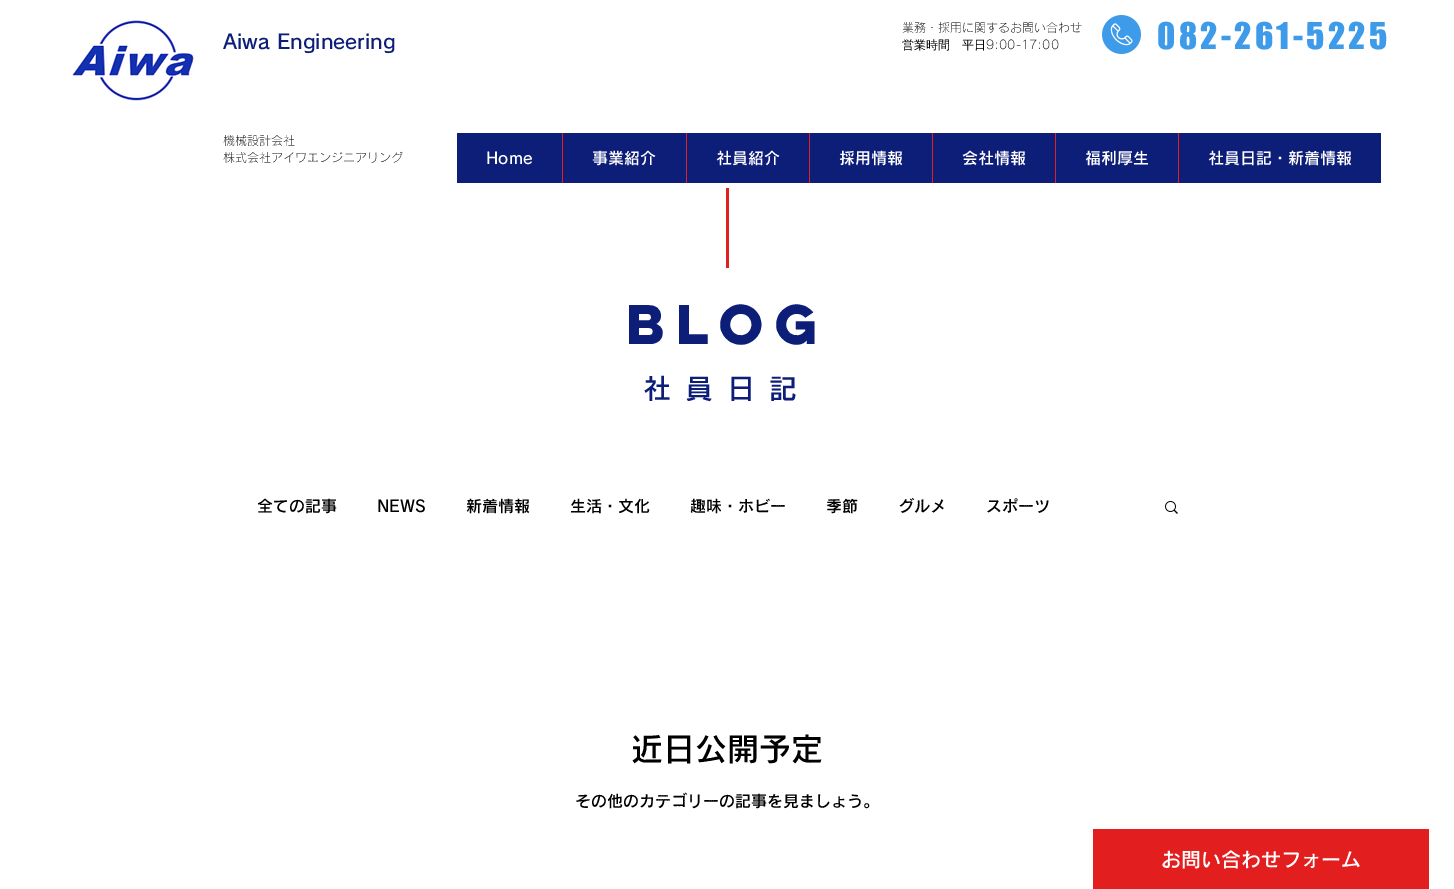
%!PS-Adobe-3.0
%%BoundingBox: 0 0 1454 889
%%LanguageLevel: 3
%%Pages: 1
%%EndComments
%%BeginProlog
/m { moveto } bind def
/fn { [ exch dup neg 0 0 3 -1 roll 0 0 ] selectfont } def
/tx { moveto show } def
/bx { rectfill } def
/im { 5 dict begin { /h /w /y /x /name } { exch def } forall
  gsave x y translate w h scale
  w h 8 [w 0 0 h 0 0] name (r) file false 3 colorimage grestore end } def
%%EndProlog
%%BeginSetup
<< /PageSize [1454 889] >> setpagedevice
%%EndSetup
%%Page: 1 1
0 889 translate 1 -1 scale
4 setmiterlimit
1 setgray
0 0 1454 889 bx
(image0.raw) 72 20 122 81 im
/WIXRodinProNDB-SemiBold 20 fn
0.051 0.118 0.471 setrgbcolor
(Aiwa Engineering) 223 49 tx
/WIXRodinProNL-Light 12 fn
0 setgray
(業務・採用に関するお問い合わせ) 902 32 tx
/WenQuanYiZenHei-Medium 12 fn
(営業時間　平日) 902 49 tx
/WIXRodinProNL-Light 12 fn
(9:00-17:00) 986 49 tx
(image1.raw) 1102 15 39 39 im
/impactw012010-Regular 34 fn
0.239 0.608 0.914 setrgbcolor
1157 49 m 3.4 0 (082-261-5225) ashow
/WIXRodinProNL-Light 12 fn
0 setgray
(機械設計会社) 223 145 tx
(株式会社アイワエンジニアリング) 223 162 tx
0.051 0.118 0.471 setrgbcolor
457 133 924 50 bx
/WIXRodinProNDB-SemiBold 16 fn
1 setgray
(Home) 486 164 tx
0.89 0.118 0.118 setrgbcolor
562 133 1 50 bx
1 setgray
(事業紹介) 592 164 tx
0.89 0.118 0.118 setrgbcolor
686 133 1 50 bx
1 setgray
(社員紹介) 716 164 tx
0.89 0.118 0.118 setrgbcolor
809 133 1 50 bx
1 setgray
(採用情報) 839 164 tx
0.89 0.118 0.118 setrgbcolor
932 133 1 50 bx
1 setgray
(会社情報) 962 164 tx
0.89 0.118 0.118 setrgbcolor
1055 133 1 50 bx
1 setgray
(福利厚生) 1085 164 tx
0.89 0.118 0.118 setrgbcolor
1178 133 1 50 bx
1 setgray
(社員日記・新着情報) 1208 164 tx
0.89 0.118 0.118 setrgbcolor
726 188 3 80 bx
/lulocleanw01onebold-Bold 50 fn
0.051 0.118 0.471 setrgbcolor
(BLOG) 626 344 tx
/WIXRodinProNDB-SemiBold 28 fn
643 399 m 14 0 (社員日記) ashow
/WIXRodinProNDB-SemiBold 16 fn
0 setgray
(全ての記事) 257 512 tx
(NEWS) 377 512 tx
(新着情報) 466 512 tx
(生活・文化) 570 512 tx
(趣味・ホビー) 690 512 tx
(季節) 826 512 tx
(グルメ) 898 512 tx
(スポーツ) 986 512 tx
(image2.raw) 1165 501 13 13 im
/WIXRodinProNDB-SemiBold 32 fn
(近日公開予定) 631 761 tx
/WIXRodinProNDB-SemiBold 16 fn
(その他のカテゴリーの記事を見ましょう。) 575 807 tx
0.89 0.118 0.118 setrgbcolor
1093 829 336 60 bx
/WIXRodinProNDB-SemiBold 20 fn
1 setgray
(お問い合わせフォーム) 1161 867 tx
showpage
%%EOF
